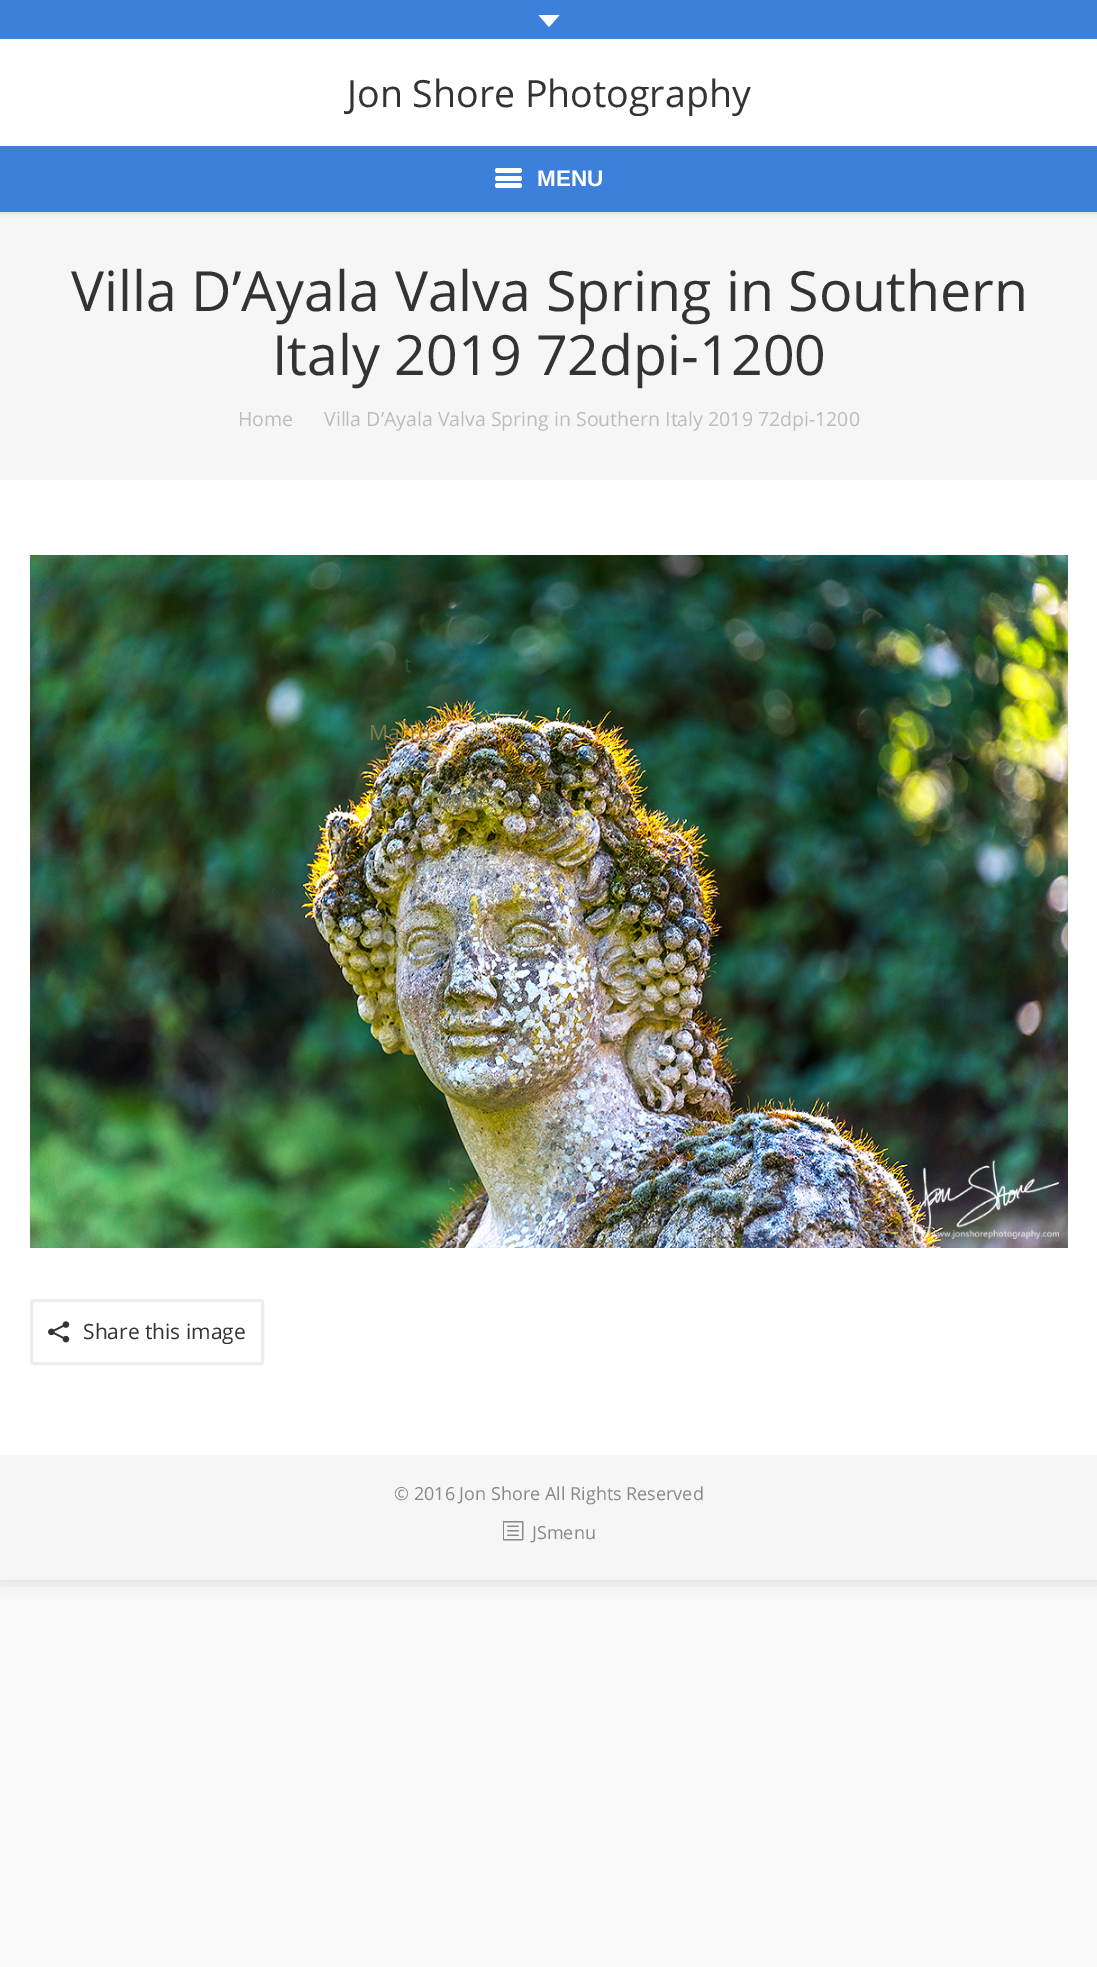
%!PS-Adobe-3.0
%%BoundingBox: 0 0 1097 1967
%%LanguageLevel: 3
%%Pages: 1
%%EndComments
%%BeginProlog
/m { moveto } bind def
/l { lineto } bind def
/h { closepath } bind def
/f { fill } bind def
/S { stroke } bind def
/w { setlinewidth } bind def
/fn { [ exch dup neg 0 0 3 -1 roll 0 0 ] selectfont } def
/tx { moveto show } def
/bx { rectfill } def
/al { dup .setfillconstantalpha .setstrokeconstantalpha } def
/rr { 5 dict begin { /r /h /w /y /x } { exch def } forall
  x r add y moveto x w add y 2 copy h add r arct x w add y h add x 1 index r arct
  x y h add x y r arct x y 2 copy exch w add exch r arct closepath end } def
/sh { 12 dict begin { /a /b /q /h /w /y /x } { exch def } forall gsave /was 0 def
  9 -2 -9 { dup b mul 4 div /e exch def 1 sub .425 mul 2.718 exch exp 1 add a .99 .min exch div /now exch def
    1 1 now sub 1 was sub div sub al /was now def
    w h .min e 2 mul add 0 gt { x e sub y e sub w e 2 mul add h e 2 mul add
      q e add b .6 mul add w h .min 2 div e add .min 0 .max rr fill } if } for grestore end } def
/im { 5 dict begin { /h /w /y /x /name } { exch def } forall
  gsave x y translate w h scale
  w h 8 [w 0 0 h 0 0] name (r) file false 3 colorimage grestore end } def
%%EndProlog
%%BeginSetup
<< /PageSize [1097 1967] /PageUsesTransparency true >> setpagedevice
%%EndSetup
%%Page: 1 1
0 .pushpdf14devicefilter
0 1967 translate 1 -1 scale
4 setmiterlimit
0.976 setgray
0 0 1097 1967 bx
0 setgray
0 0 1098 1580 0 9 0.15 sh
1 setgray
0 480 1097 975 bx
0.965 setgray
0 212 1097 268 bx
0 setgray
0 -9 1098 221 0 3 0.15 sh
1 setgray
0 39 1097 107 bx
0.239 0.502 0.863 setrgbcolor
0 0 1097 39 bx
1 setgray
538.5 15 m 559.5 15 l 549 27 l h f
/OpenSans-Regular 37.5 fn
0.2 setgray
(Jon Shore Photography) 347 107 tx
0.239 0.502 0.863 setrgbcolor
0 146 1097 66 bx
1 setgray
495 176 27 5 2.5 rr f
495 168 27 5 2.5 rr f
495 183 27 5 2.5 rr f
/LiberationSans-Bold 22.5 fn
(MENU) 537 186 tx
(image0.raw) 30 555 1038 693 im
/OpenSans-Regular 21 fn
0.149 0.333 0.251 setrgbcolor
(t) 404 672 tx
0.51 0.482 0.267 setrgbcolor
(Macro) 369 740 tx
0.522 0.502 0.337 setrgbcolor
(Conceptual) 369 807 tx
0.643 0.651 0.627 setrgbcolor
(Backgrounds) 369 875 tx
0.612 0.588 0.486 setrgbcolor
(Commercial & Product) 369 942 tx
0.565 0.533 0.38 setrgbcolor
(Videos) 369 1010 tx
/OpenSans-Regular 55.5 fn
0.2 setgray
(Villa D’Ayala Valva Spring in Southern) 71 311 tx
(Italy 2019 72dpi-1200) 272 375 tx
/OpenSans-Regular 19.5 fn
0.737 setgray
(Home) 238 426 tx
(Villa D’Ayala Valva Spring in Southern Italy 2019 72dpi-1200) 324 426 tx
(image1.raw) 48 1321 22 22 im
0.929 setgray
3 w
31.5 1300.5 231 63 1.5 rr S
/OpenSans-Regular 21 fn
0.2 setgray
(Share this image) 83 1339 tx
0.965 setgray
0 1455 1097 125 bx
/OpenSans-Regular 18 fn
0.533 setgray
(© 2016 Jon Shore All Rights Reserved) 394 1500 tx
(image2.raw) 503 1521 21 20 im
(JSmenu) 532 1539 tx
.poppdf14devicefilter showpage
%%EOF
